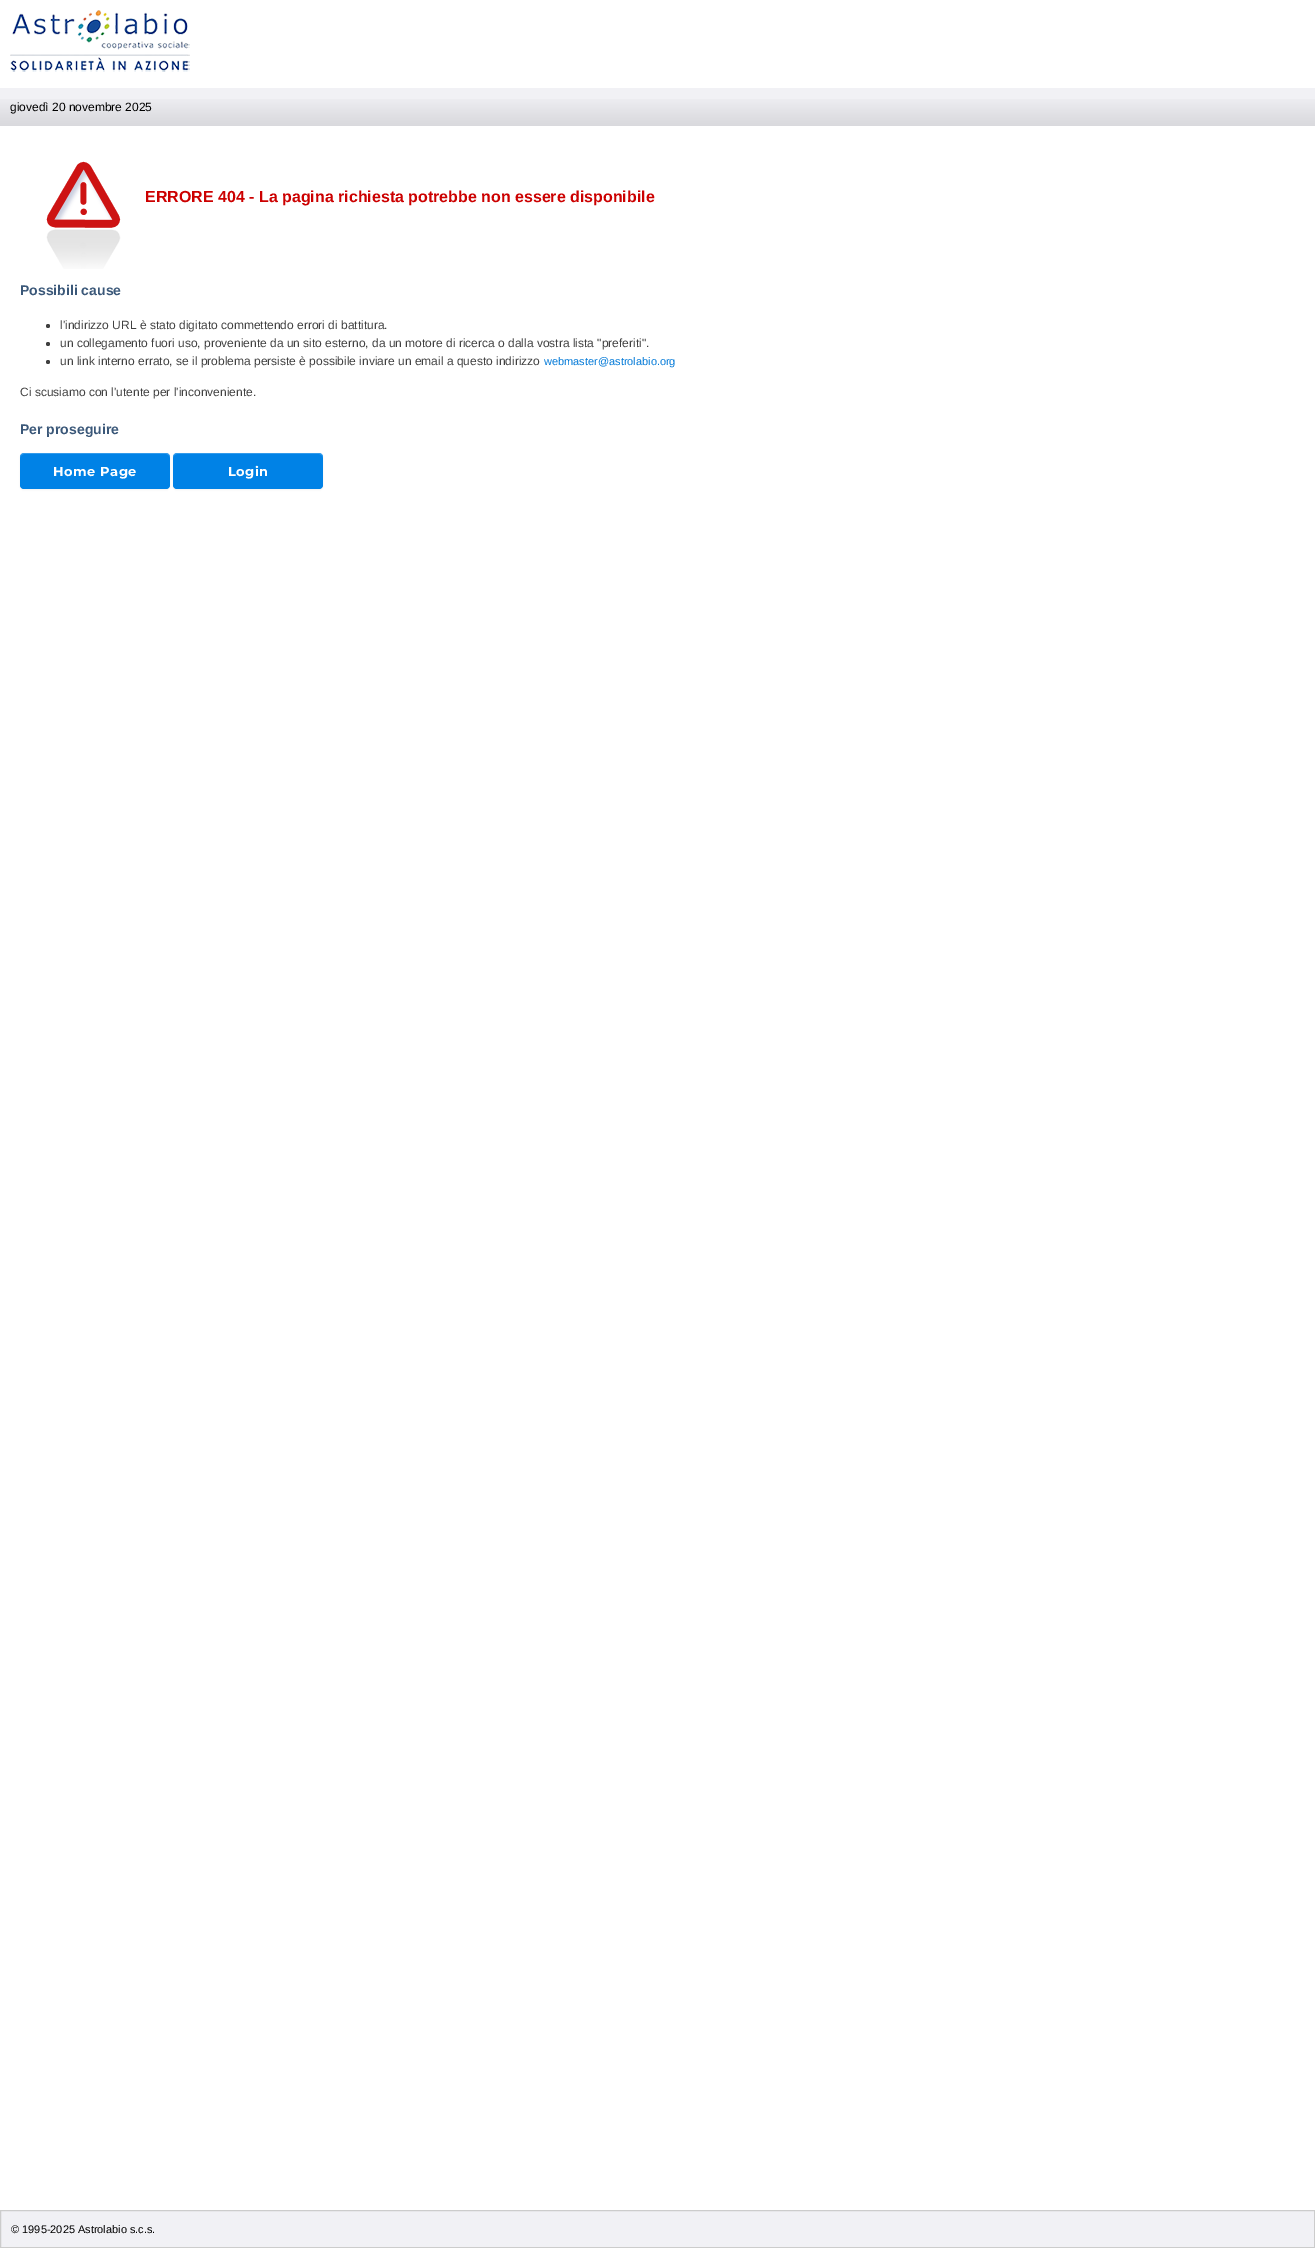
%!PS-Adobe-3.0
%%BoundingBox: 0 0 1315 2248
%%LanguageLevel: 3
%%Pages: 1
%%EndComments
%%BeginProlog
/m { moveto } bind def
/l { lineto } bind def
/c { curveto } bind def
/h { closepath } bind def
/f { fill } bind def
/S { stroke } bind def
/q { gsave } bind def
/Q { grestore } bind def
/fn { [ exch dup neg 0 0 3 -1 roll 0 0 ] selectfont } def
/tx { moveto show } def
/bx { rectfill } def
/al { dup .setfillconstantalpha .setstrokeconstantalpha } def
/ci { newpath 0 360 arc closepath } def
/rr { 5 dict begin { /r /h /w /y /x } { exch def } forall
  x r add y moveto x w add y 2 copy h add r arct x w add y h add x 1 index r arct
  x y h add x y r arct x y 2 copy exch w add exch r arct closepath end } def
/sh { 12 dict begin { /a /b /q /h /w /y /x } { exch def } forall gsave /was 0 def
  9 -2 -9 { dup b mul 4 div /e exch def 1 sub .425 mul 2.718 exch exp 1 add a .99 .min exch div /now exch def
    1 1 now sub 1 was sub div sub al /was now def
    w h .min e 2 mul add 0 gt { x e sub y e sub w e 2 mul add h e 2 mul add
      q e add b .6 mul add w h .min 2 div e add .min 0 .max rr fill } if } for grestore end } def
/im { 5 dict begin { /h /w /y /x /name } { exch def } forall
  gsave x y translate w h scale
  w h 8 [w 0 0 h 0 0] name (r) file false 3 colorimage grestore end } def
%%EndProlog
%%BeginSetup
<< /PageSize [1315 2248] /PageUsesTransparency true >> setpagedevice
%%EndSetup
%%Page: 1 1
0 .pushpdf14devicefilter
0 2248 translate 1 -1 scale
4 setmiterlimit
1 setgray
0 0 1315 2248 bx
(image0.raw) 10 10 180 62 im
0.945 0.945 0.961 setrgbcolor
0 88 1315 38 bx
(image1.raw) 0 99 1315 27 im
/LiberationSans-Regular 12 fn
0 setgray
(giovedì 20 novembre 2025) 10 111 tx
(image2.raw) 46 161 75 108 im
/LiberationSans-Bold 16 fn
0.8 0 0 setrgbcolor
(ERRORE 404 - La pagina richiesta potrebbe non essere disponibile) 145 202 tx
/LiberationSans-Bold 14 fn
0.231 0.345 0.475 setrgbcolor
(Possibili cause) 20 295 tx
0.255 setgray
48 326 2 ci f
/LiberationSans-Regular 12 fn
(l'indirizzo URL è stato digitato commettendo errori di battitura.) 60 329 tx
48 344 2 ci f
(un collegamento fuori uso, proveniente da un sito esterno, da un motore di ricerca o dalla vostra lista "preferiti".) 60 347 tx
48 362 2 ci f
(un link interno errato, se il problema persiste è possibile inviare un email a questo indirizzo) 60 365 tx
/LiberationSans-Regular 11 fn
0 0.471 0.843 setrgbcolor
(webmaster@astrolabio.org) 544 365 tx
/LiberationSans-Regular 12 fn
0.255 setgray
(Ci scusiamo con l'utente per l'inconveniente.) 20 396 tx
/LiberationSans-Bold 14 fn
0.231 0.345 0.475 setrgbcolor
(Per proseguire) 20 434 tx
0 setgray
20 454 150 36 4 1 0.05 sh
0 0.51 0.902 setrgbcolor
20 453 150 36 4 rr f
0.2 al
1 setgray
24 454 m 166 454 l 168 454 170 456 170 458 c 170 455 169 453 166 453 c 23 453 l 21 454 20 456 20 458 c 20 456 22 454 24 454 c h f
/Montserrat-Bold 13 fn
1 al
53 476 m 0.5 0 (Home Page) ashow
0 setgray
173 454 150 36 4 1 0.05 sh
0 0.51 0.902 setrgbcolor
173 453 150 36 4 rr f
0.2 al
1 setgray
177 454 m 319 454 l 321 454 323 456 323 458 c 323 456 322 454 320 453 c 177 453 l 174 453 173 455 173 458 c 173 456 175 454 177 454 c h f
1 al
228 476 m 0.5 0 (Login) ashow
0.945 0.945 0.961 setrgbcolor
0.5 2210.5 m 1314.5 2210.5 l 1314.5 2247.5 l 0.5 2247.5 l h q f Q
0.8 setgray
S
/LiberationSans-Regular 11 fn
0 setgray
(© 1995-2025 Astrolabio s.c.s.) 11 2233 tx
.poppdf14devicefilter showpage
%%EOF
